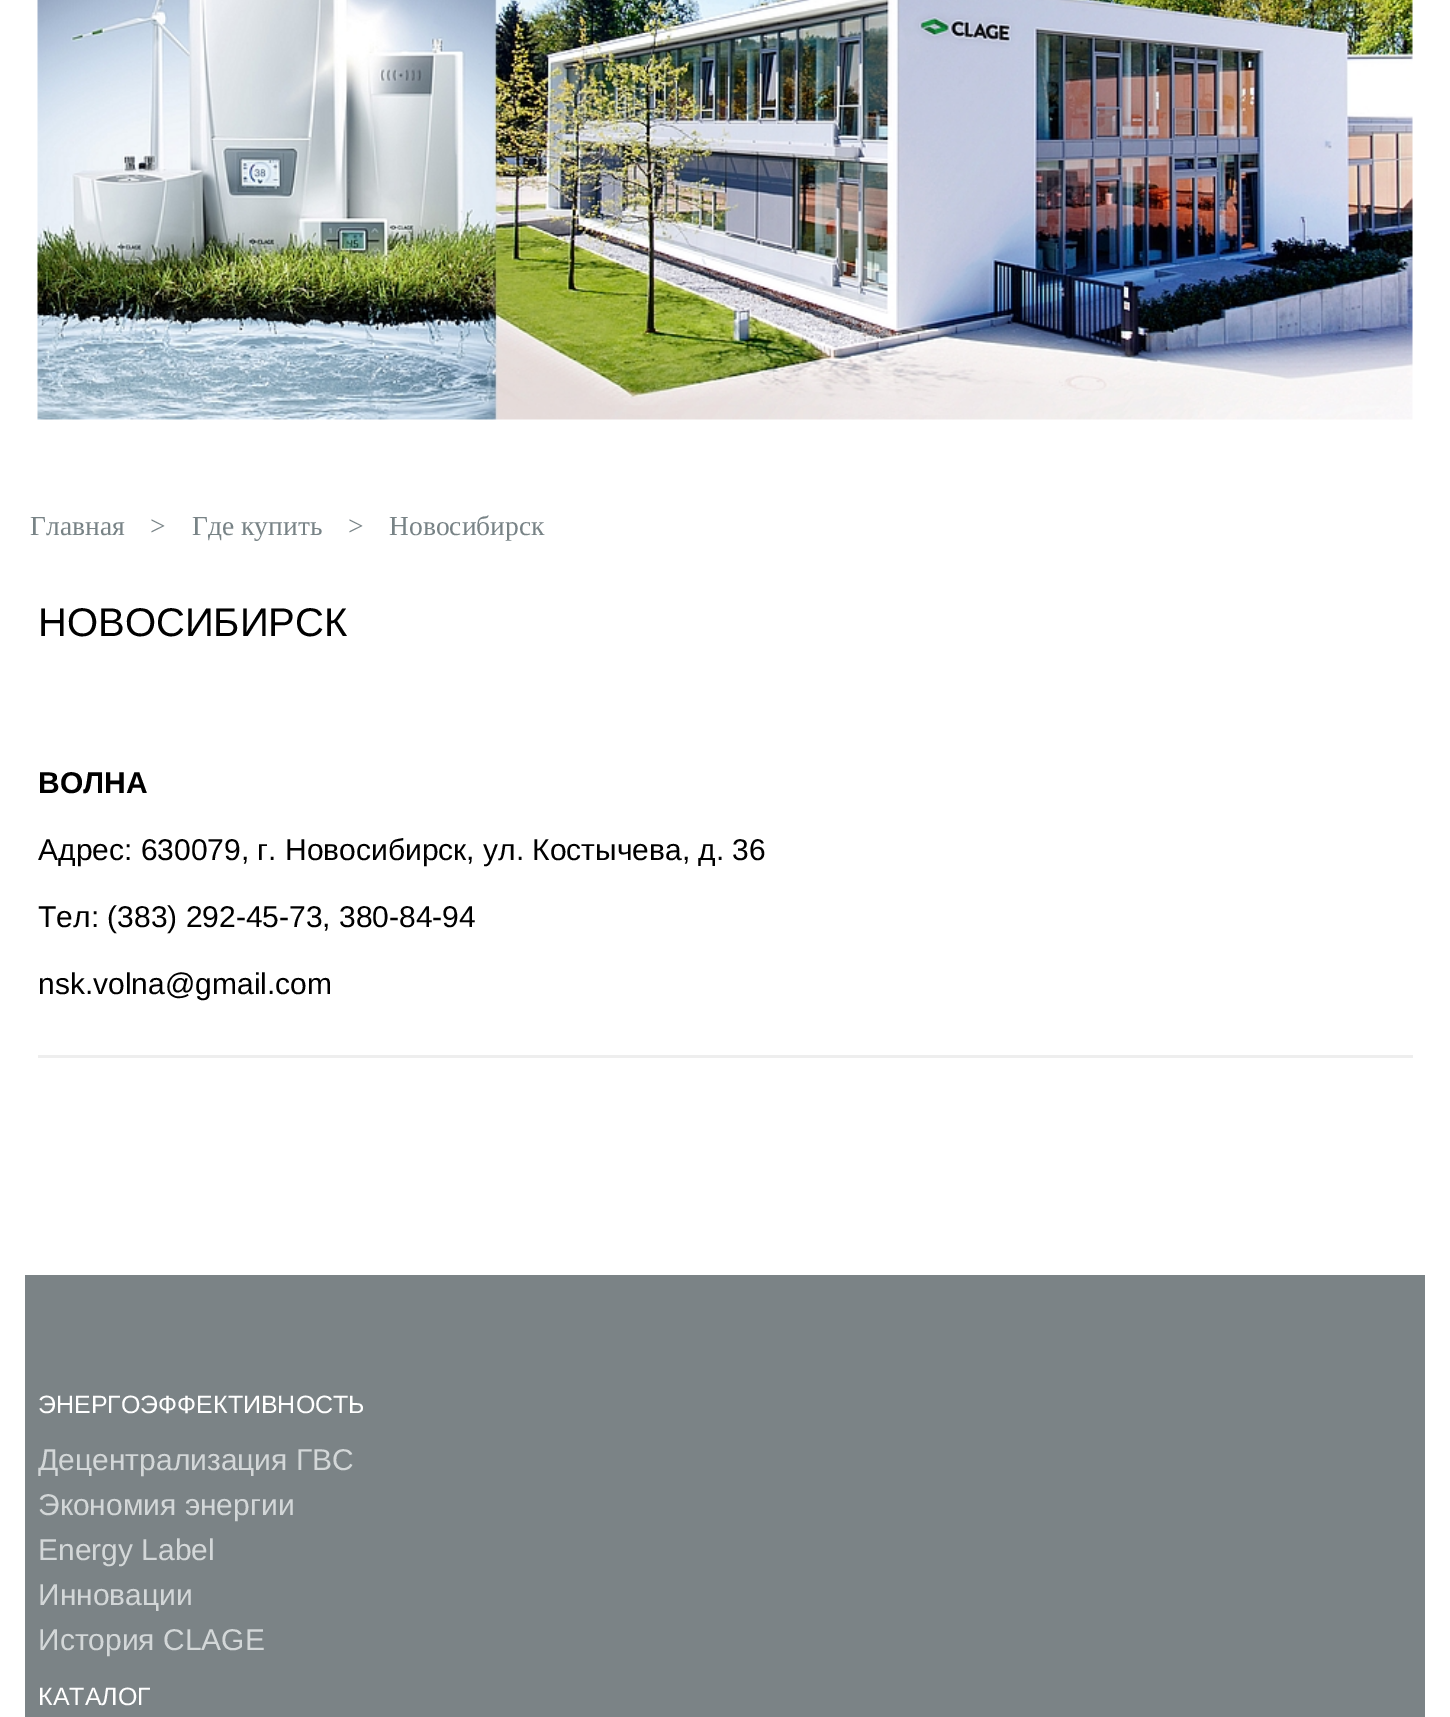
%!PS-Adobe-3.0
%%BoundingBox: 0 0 1450 1717
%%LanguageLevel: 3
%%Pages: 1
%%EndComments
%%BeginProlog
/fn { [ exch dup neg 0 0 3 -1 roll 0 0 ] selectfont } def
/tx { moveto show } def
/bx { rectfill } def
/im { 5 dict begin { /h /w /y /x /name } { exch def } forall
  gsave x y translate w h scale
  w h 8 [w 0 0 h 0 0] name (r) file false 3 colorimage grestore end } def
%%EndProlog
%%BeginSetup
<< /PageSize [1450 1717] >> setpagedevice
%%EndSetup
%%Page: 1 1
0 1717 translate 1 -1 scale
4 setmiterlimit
1 setgray
0 0 1450 1717 bx
(image0.raw) 37 0 1376 420 im
/LiberationSerif-Regular 27.5 fn
0.471 0.514 0.525 setrgbcolor
(Главная) 30 535 tx
(>) 150 535 tx
(Где купить) 192 535 tx
(>) 348 535 tx
(Новосибирск) 389 535 tx
/LiberationSans-Regular 40 fn
0 setgray
(НОВОСИБИРСК) 38 636 tx
/LiberationSans-Bold 30 fn
(ВОЛНА) 38 793 tx
/LiberationSans-Regular 30 fn
(Адрес: 630079, г. Новосибирск, ул. Костычева, д. 36) 38 860 tx
(Тел: \(383\) 292-45-73, 380-84-94) 38 927 tx
(nsk.volna@gmail.com) 38 994 tx
0.933 setgray
38 1055 1375 3 bx
0.482 0.514 0.525 setrgbcolor
25 1275 1400 442 bx
/LiberationSans-Regular 25 fn
1 setgray
(ЭНЕРГОЭФФЕКТИВНОСТЬ) 38 1413 tx
/LiberationSans-Regular 30 fn
0.827 0.843 0.847 setrgbcolor
(Децентрализация ГВС) 38 1470 tx
(Экономия энергии) 38 1515 tx
(Energy Label) 38 1560 tx
(Инновации) 38 1605 tx
(История CLAGE) 38 1650 tx
/LiberationSans-Regular 25 fn
1 setgray
(КАТАЛОГ) 38 1705 tx
showpage
%%EOF
